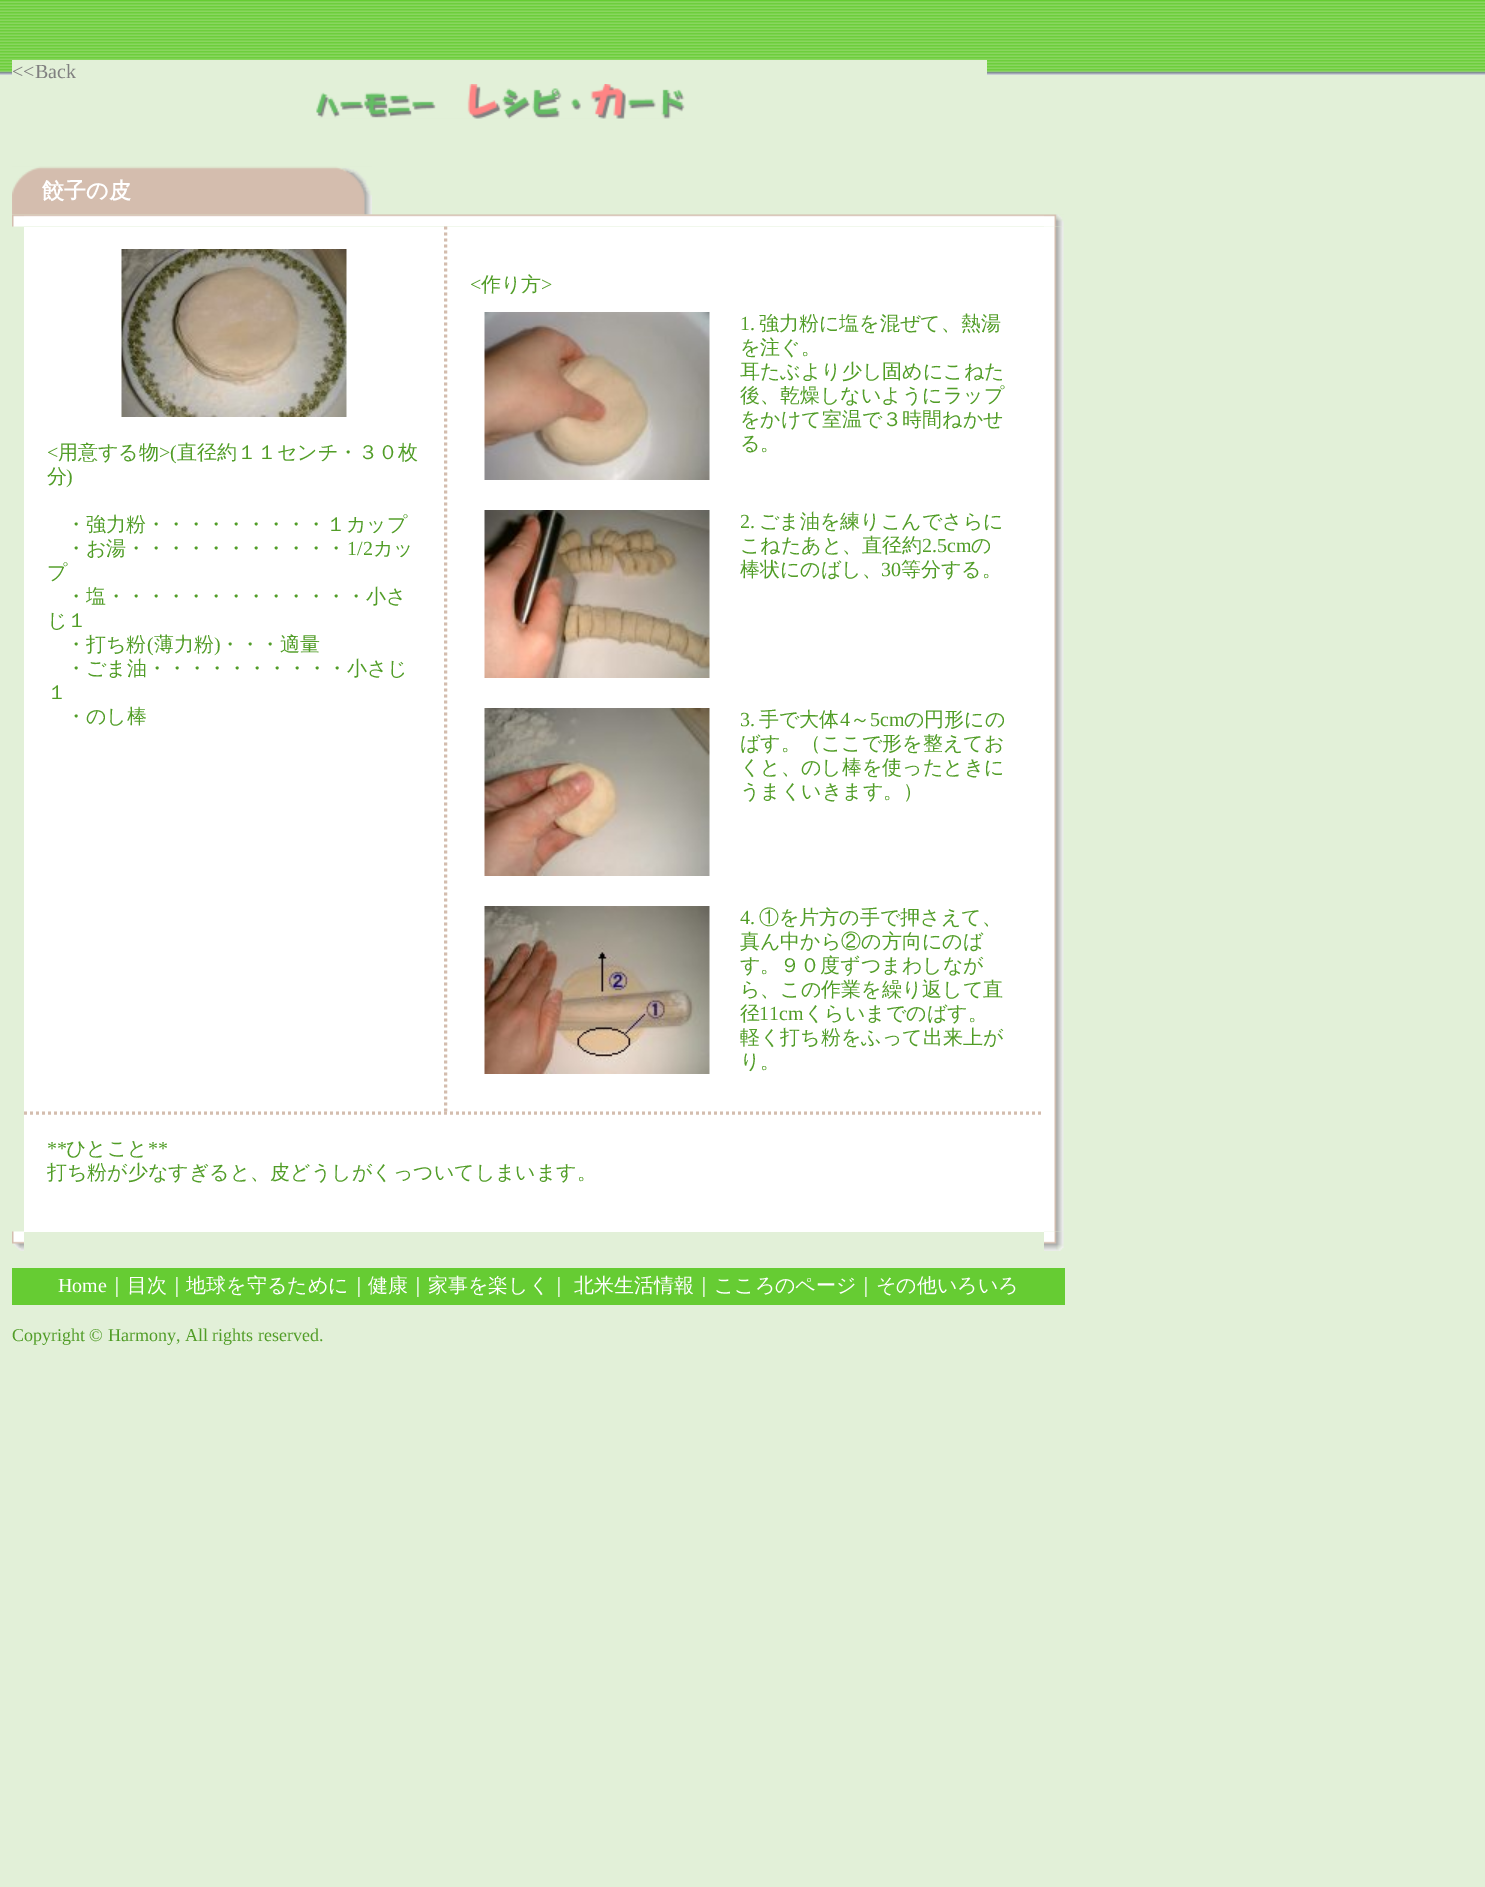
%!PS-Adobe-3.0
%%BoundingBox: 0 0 1485 1887
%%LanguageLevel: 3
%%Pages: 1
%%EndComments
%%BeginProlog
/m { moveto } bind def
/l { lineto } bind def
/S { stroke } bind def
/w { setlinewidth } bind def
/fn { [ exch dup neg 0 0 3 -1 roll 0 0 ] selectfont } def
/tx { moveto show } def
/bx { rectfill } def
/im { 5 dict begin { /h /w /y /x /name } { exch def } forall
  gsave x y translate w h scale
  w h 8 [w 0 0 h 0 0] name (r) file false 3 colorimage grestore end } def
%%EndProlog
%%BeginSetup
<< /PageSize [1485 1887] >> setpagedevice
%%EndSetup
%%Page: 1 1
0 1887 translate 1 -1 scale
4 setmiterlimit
0.886 0.941 0.847 setrgbcolor
0 0 1485 1887 bx
(image0.raw) 0 0 1485 75 im
12 60 975 15 bx
/LiberationSerif-Regular 20 fn
0.502 setgray
(<<Back) 12 78 tx
(image1.raw) 316 84 369 35 im
(image2.raw) 12 166 360 49 im
/WenQuanYiZenHei-Bold 22 fn
1 setgray
(餃子の皮) 42 198 tx
(image3.raw) 12 214 12 13 im
(image4.raw) 24 214 1020 13 im
(image11.raw) 1044 226 20 1006 im
(image5.raw) 1044 214 20 13 im
24 227 1020 1005 bx
0.831 0.741 0.682 setrgbcolor
3 w
[3 3] 0 setdash
445.5 226.5 m 445.5 1111.5 l S
(image6.raw) 121 249 226 168 im
/LiberationSerif-Regular 20 fn
0.318 0.616 0.153 setrgbcolor
(<) 47 459 tx
/WenQuanYiZenHei-Medium 20 fn
(用意する物) 58 459 tx
/LiberationSerif-Regular 20 fn
(>\() 159 459 tx
/WenQuanYiZenHei-Medium 20 fn
(直径約１１センチ・３０枚) 177 459 tx
(分) 47 483 tx
/LiberationSerif-Regular 20 fn
(\)) 66 483 tx
/WenQuanYiZenHei-Medium 20 fn
(・強力粉・・・・・・・・・１カップ) 66 531 tx
(・お湯・・・・・・・・・・・) 66 555 tx
/LiberationSerif-Regular 20 fn
(1/2) 347 555 tx
/WenQuanYiZenHei-Medium 20 fn
(カッ) 373 555 tx
(プ) 47 579 tx
(・塩・・・・・・・・・・・・・小さ) 66 603 tx
(じ１) 47 627 tx
(・打ち粉) 66 651 tx
/LiberationSerif-Regular 20 fn
(\() 147 651 tx
/WenQuanYiZenHei-Medium 20 fn
(薄力粉) 154 651 tx
/LiberationSerif-Regular 20 fn
(\)) 214 651 tx
/WenQuanYiZenHei-Medium 20 fn
(・・・適量) 220 651 tx
(・ごま油・・・・・・・・・・小さじ) 66 675 tx
(１) 47 699 tx
(・のし棒) 66 723 tx
/LiberationSerif-Regular 20 fn
(<) 470 291 tx
/WenQuanYiZenHei-Medium 20 fn
(作り方) 481 291 tx
/LiberationSerif-Regular 20 fn
(>) 541 291 tx
(image7.raw) 484 312 226 168 im
(1.) 740 330 tx
/WenQuanYiZenHei-Medium 20 fn
(強力粉に塩を混ぜて、熱湯) 759 330 tx
(を注ぐ。) 740 354 tx
(耳たぶより少し固めにこねた) 740 378 tx
(後、乾燥しないようにラップ) 740 402 tx
(をかけて室温で３時間ねかせ) 740 426 tx
(る。) 740 450 tx
(image8.raw) 484 510 226 168 im
/LiberationSerif-Regular 20 fn
(2.) 740 528 tx
/WenQuanYiZenHei-Medium 20 fn
(ごま油を練りこんでさらに) 759 528 tx
(こねたあと、直径約) 740 552 tx
/LiberationSerif-Regular 20 fn
(2.5cm) 922 552 tx
/WenQuanYiZenHei-Medium 20 fn
(の) 971 552 tx
(棒状にのばし、) 740 576 tx
/LiberationSerif-Regular 20 fn
(30) 881 576 tx
/WenQuanYiZenHei-Medium 20 fn
(等分する。) 901 576 tx
(image9.raw) 484 708 226 168 im
/LiberationSerif-Regular 20 fn
(3.) 740 726 tx
/WenQuanYiZenHei-Medium 20 fn
(手で大体) 759 726 tx
/LiberationSerif-Regular 20 fn
(4) 840 726 tx
/WenQuanYiZenHei-Medium 20 fn
(～) 850 726 tx
/LiberationSerif-Regular 20 fn
(5cm) 870 726 tx
/WenQuanYiZenHei-Medium 20 fn
(の円形にの) 904 726 tx
(ばす。（ここで形を整えてお) 740 750 tx
(くと、のし棒を使ったときに) 740 774 tx
(うまくいきます。）) 740 798 tx
(image10.raw) 484 906 226 168 im
/LiberationSerif-Regular 20 fn
(4.) 740 924 tx
/WenQuanYiZenHei-Medium 20 fn
(①を片方の手で押さえて、) 759 924 tx
(真ん中から②の方向にのば) 740 948 tx
(す。９０度ずつまわしなが) 740 972 tx
(ら、この作業を繰り返して直) 740 996 tx
(径) 740 1020 tx
/LiberationSerif-Regular 20 fn
(11cm) 759 1020 tx
/WenQuanYiZenHei-Medium 20 fn
(くらいまでのばす。) 804 1020 tx
(軽く打ち粉をふって出来上が) 740 1044 tx
(り。) 740 1068 tx
0.831 0.741 0.682 setrgbcolor
24 1113 m 1044 1113 l S
/LiberationSerif-Regular 20 fn
0.318 0.616 0.153 setrgbcolor
(**) 47 1155 tx
/WenQuanYiZenHei-Medium 20 fn
(ひとこと) 66 1155 tx
/LiberationSerif-Regular 20 fn
(**) 148 1155 tx
/WenQuanYiZenHei-Medium 20 fn
(打ち粉が少なすぎると、皮どうしがくっついてしまいます。) 47 1179 tx
(image12.raw) 12 1231 12 20 im
(image13.raw) 1044 1231 20 20 im
0.4 0.8 0.2 setrgbcolor
12 1268 1053 37 bx
/LiberationSerif-Regular 20 fn
1 setgray
(Home) 58 1292 tx
/WenQuanYiZenHei-Medium 20 fn
(｜目次｜地球を守るために｜健康｜家事を楽しく｜) 107 1292 tx
(北米生活情報｜こころのページ｜その他いろいろ) 574 1292 tx
/LiberationSerif-Regular 18 fn
0.318 0.616 0.153 setrgbcolor
(Copyright © Harmony, All rights reserved.) 12 1341 tx
showpage
%%EOF
